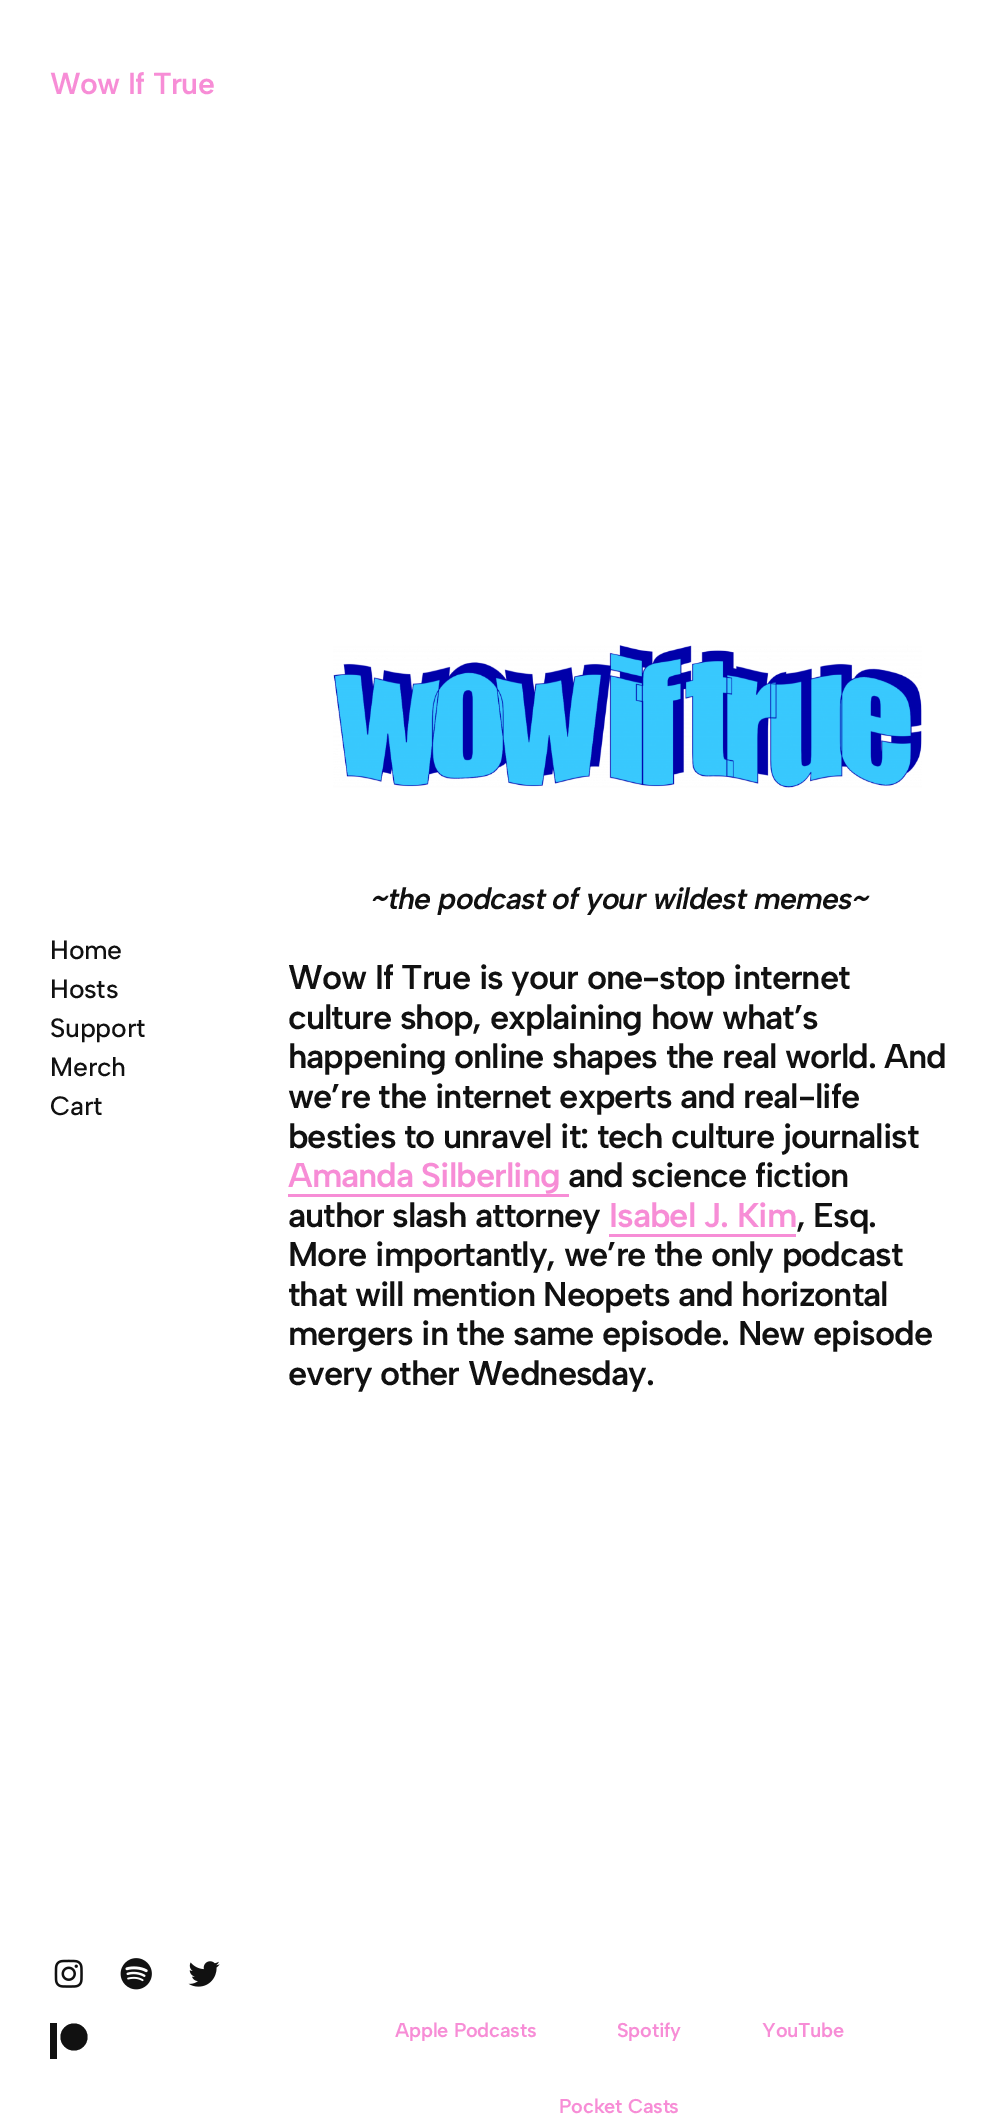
%!PS-Adobe-3.0
%%BoundingBox: 0 0 1001 2126
%%LanguageLevel: 3
%%Pages: 1
%%EndComments
%%BeginProlog
/m { moveto } bind def
/f { fill } bind def
/fn { [ exch dup neg 0 0 3 -1 roll 0 0 ] selectfont } def
/bx { rectfill } def
/ci { newpath 0 360 arc closepath } def
/im { 5 dict begin { /h /w /y /x /name } { exch def } forall
  gsave x y translate w h scale
  w h 8 [w 0 0 h 0 0] name (r) file false 3 colorimage grestore end } def
%%EndProlog
%%BeginSetup
<< /PageSize [1001 2126] >> setpagedevice
%%EndSetup
%%Page: 1 1
0 2126 translate 1 -1 scale
4 setmiterlimit
1 setgray
0 0 1001 2126 bx
/AlbertSans-SemiBold 30.4 fn
0.969 0.553 0.839 setrgbcolor
50 94 m -0.6 0 (Wow If True) ashow
/AlbertSans-Medium 26.5 fn
0.067 setgray
50 959 m -0.25 0 (Home) ashow
50 998 m -0.25 0 (Hosts) ashow
50 1037 m -0.25 0 (Support) ashow
50 1076 m -0.25 0 (Merch) ashow
50 1115 m -0.25 0 (Cart) ashow
(image0.raw) 54 1959 29 29 im
(image1.raw) 120 1958 32 32 im
(image2.raw) 188 1961 32 26 im
74 2037 13.5 ci f
50 2023 7 36 bx
(image3.raw) 333 645 589 143 im
/AlbertSans-SemiBoldItalic 30.4 fn
371 909 m -0.9 0 (~the podcast of your wildest memes~) ashow
/AlbertSans-SemiBold 34.4 fn
288 989 m -1.05 0 (Wow If True is your one-stop internet) ashow
288 1029 m -1.05 0 (culture shop, explaining how what’s) ashow
288 1068 m -1.05 0 (happening online shapes the real world. And) ashow
288 1108 m -1.05 0 (we’re the internet experts and real-life) ashow
288 1148 m -1.05 0 (besties to unravel it: tech culture journalist) ashow
0.969 0.553 0.839 setrgbcolor
288 1187 m -1.05 0 (Amanda Silberling) ashow
288 1194 281 3 bx
0.067 setgray
568 1187 m -1.05 0 (and science fiction) ashow
288 1227 m -1.05 0 (author slash attorney) ashow
0.969 0.553 0.839 setrgbcolor
609 1227 m -1.05 0 (Isabel J. Kim) ashow
609 1234 187 3 bx
0.067 setgray
796 1227 m -1.05 0 (, Esq.) ashow
288 1266 m -1.05 0 (More importantly, we’re the only podcast) ashow
288 1306 m -1.05 0 (that will mention Neopets and horizontal) ashow
288 1345 m -1.05 0 (mergers in the same episode. New episode) ashow
288 1385 m -1.05 0 (every other Wednesday.) ashow
/AlbertSans-SemiBold 20 fn
0.969 0.553 0.839 setrgbcolor
395 2037 m -0.25 0 (Apple Podcasts) ashow
617 2037 m -0.25 0 (Spotify) ashow
762 2037 m -0.25 0 (YouTube) ashow
559 2113 m -0.25 0 (Pocket Casts) ashow
showpage
%%EOF
